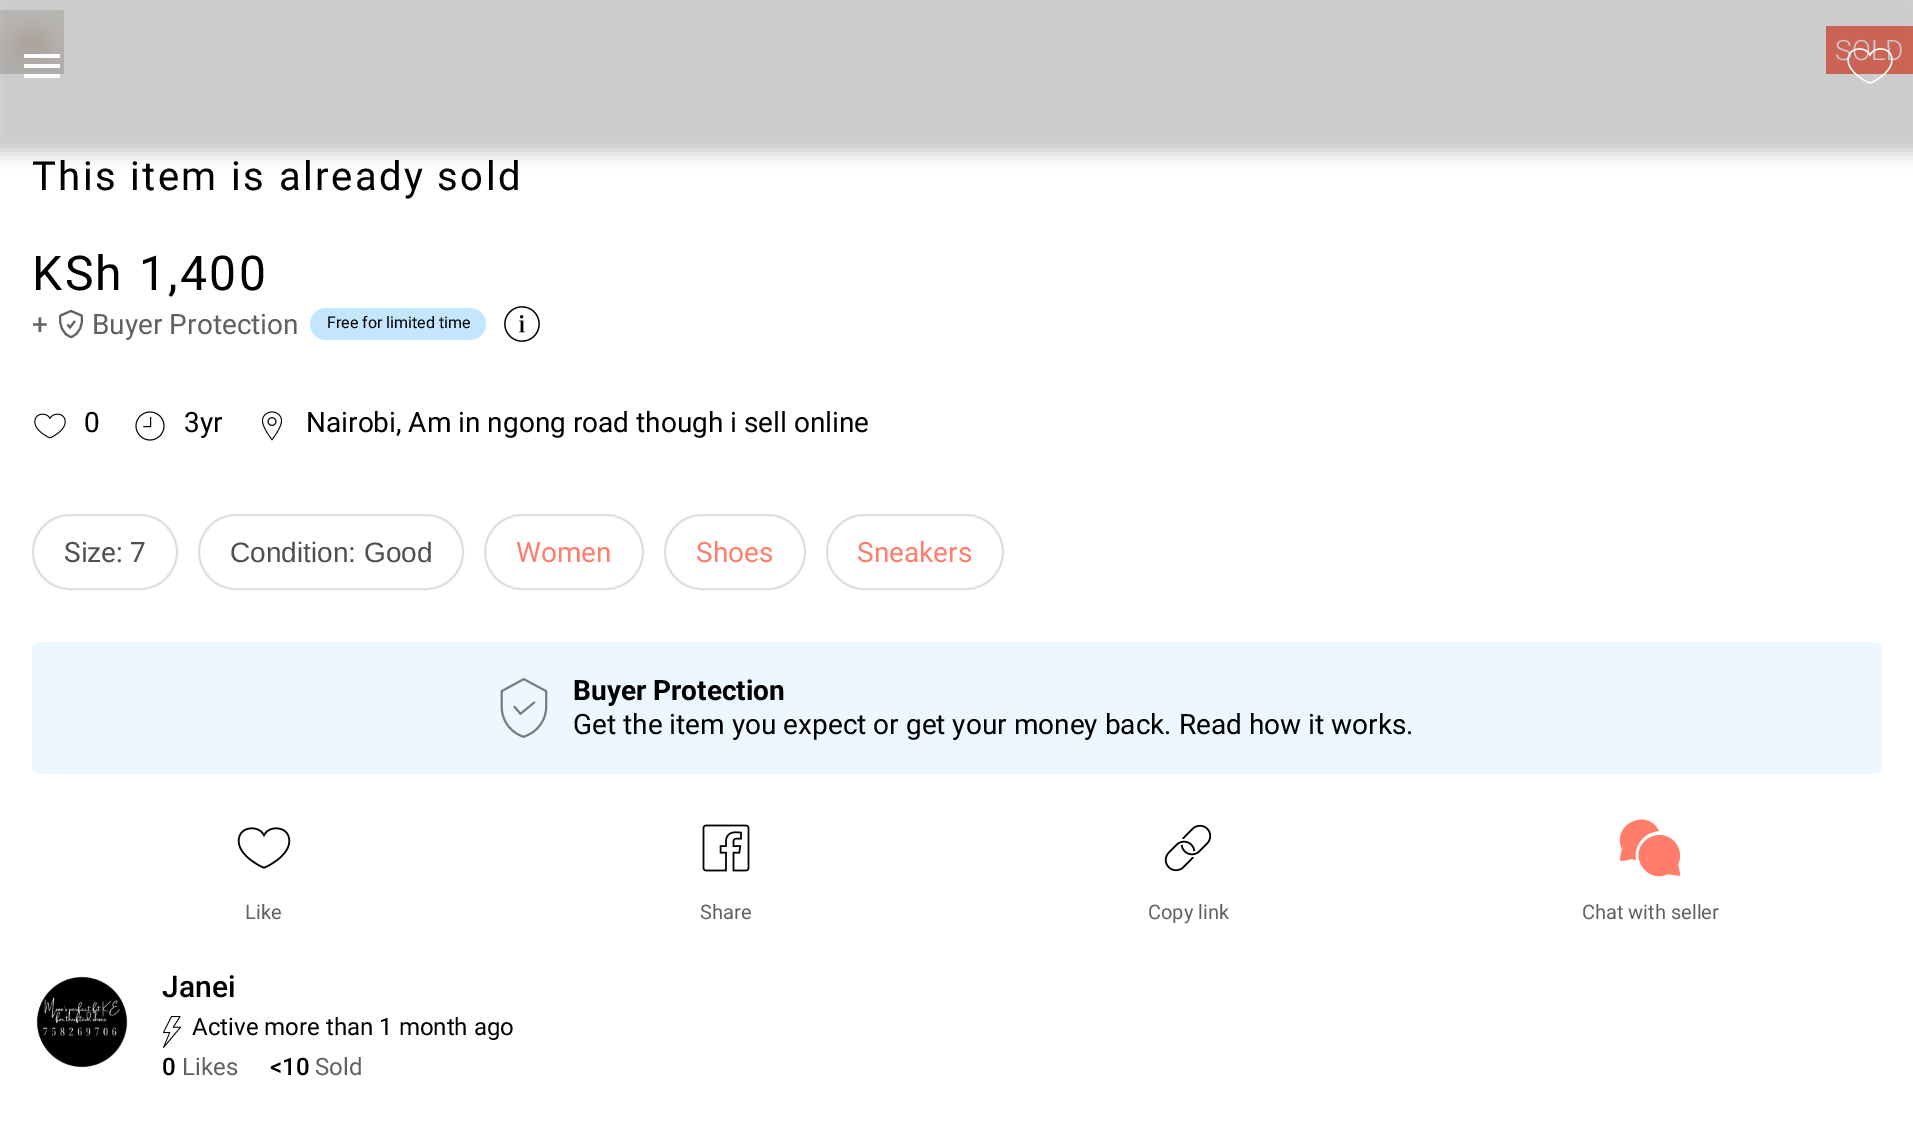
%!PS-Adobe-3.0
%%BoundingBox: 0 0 1913 1134
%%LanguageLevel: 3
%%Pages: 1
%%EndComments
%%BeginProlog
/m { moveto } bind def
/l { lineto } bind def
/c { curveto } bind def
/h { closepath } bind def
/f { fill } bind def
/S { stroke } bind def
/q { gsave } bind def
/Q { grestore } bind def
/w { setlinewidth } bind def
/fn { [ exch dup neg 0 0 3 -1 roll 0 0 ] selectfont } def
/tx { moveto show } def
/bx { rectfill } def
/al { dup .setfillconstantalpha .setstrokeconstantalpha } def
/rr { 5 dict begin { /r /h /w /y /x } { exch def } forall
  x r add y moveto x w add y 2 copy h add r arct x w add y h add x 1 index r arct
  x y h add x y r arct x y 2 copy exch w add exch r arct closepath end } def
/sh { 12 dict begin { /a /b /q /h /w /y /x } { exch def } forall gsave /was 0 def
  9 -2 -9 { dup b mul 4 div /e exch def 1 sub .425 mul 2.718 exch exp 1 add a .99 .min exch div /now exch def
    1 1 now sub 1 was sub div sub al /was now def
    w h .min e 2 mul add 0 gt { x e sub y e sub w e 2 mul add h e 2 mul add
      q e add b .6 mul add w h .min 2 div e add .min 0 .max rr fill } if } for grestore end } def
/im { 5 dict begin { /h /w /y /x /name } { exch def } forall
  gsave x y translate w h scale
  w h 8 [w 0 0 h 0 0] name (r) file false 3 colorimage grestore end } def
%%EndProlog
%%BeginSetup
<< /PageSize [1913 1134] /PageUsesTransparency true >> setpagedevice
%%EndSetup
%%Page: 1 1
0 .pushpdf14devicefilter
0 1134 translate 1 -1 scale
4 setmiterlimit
1 setgray
0 0 1913 1134 bx
(image1.raw) 0 10 64 64 im
1 0.49 0.42 setrgbcolor
1826 26 87 48 bx
q
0 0 m 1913 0 l 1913 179 l 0 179 l h 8 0 m 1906 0 l 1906 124 l 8 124 l h eoclip newpath
0 setgray
-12 -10 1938 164 0 8 0.2 sh
Q
/Roboto-Light 28 fn
1 setgray
(SOLD) 1835 60 tx
0.2 al
0 setgray
8 0 1898 124 bx
1 al
1 setgray
24 78 m 60 78 l 60 74 l 24 74 l h 24 68 m 60 68 l 60 64 l 24 64 l h 24 54 m 24 58 l 60 58 l 60 54 l h f
(image0.raw) 1847 48 46 36 im
/Roboto-Regular 40 fn
0 setgray
32 190 m 2.4 0 (This item is already sold) ashow
/Roboto-Regular 48 fn
32 290 m 2.4 0 (KSh 1,400) ashow
/Roboto-Regular 28 fn
0.376 setgray
(+) 32 334 tx
2 w
67.5 324.5 m 70 327.5 l 75 321 l 81.5 315.5 m 71 311 l 60.5 315.5 l 58.5 324 62.5 334.5 71 337 c 79.5 334.5 83.5 324 81.5 315.5 c h S
(Buyer Protection) 92 334 tx
0.769 0.902 0.996 setrgbcolor
310 308 176 32 16 rr f
/Roboto-Regular 16 fn
0 setgray
(Free for limited time) 327 328 tx
(image2.raw) 504 306 36 36 im
(image3.raw) 34 413 32 26 im
/Roboto-Regular 28 fn
(0) 84 432 tx
(image4.raw) 135 411 30 30 im
(3yr) 184 432 tx
(image5.raw) 261 411 22 30 im
(Nairobi, Am in ngong road though i sell online) 306 432 tx
0.875 setgray
33 515 144 74 37 rr S
0.306 0.31 0.333 setrgbcolor
(Size: 7) 64 562 tx
0.875 setgray
199 515 264 74 37 rr S
/LiberationSans-Regular 28 fn
0.306 0.31 0.333 setrgbcolor
(Condition: Good) 230 562 tx
0.875 setgray
485 515 158 74 37 rr S
/Roboto-Regular 28 fn
1 0.49 0.42 setrgbcolor
(Women) 516 562 tx
0.875 setgray
665 515 140 74 37 rr S
1 0.49 0.42 setrgbcolor
(Shoes) 696 562 tx
0.875 setgray
827 515 176 74 37 rr S
1 0.49 0.42 setrgbcolor
(Sneakers) 857 562 tx
0.925 0.969 1 setrgbcolor
32 642 1850 132 8 rr f
(image6.raw) 500 678 48 60 im
/Roboto-Bold 28 fn
0 setgray
(Buyer Protection) 573 700 tx
/Roboto-Regular 28 fn
(Get the item you expect or get your money back. Read how it works.) 573 734 tx
(image7.raw) 237 827 54 42 im
/Roboto-Regular 20 fn
0.376 setgray
(Like) 245 919 tx
(image8.raw) 702 824 48 48 im
(Share) 700 919 tx
(image9.raw) 1164 824 48 48 im
(Copy link) 1148 919 tx
1 0.49 0.416 setrgbcolor
1659 831 m 1647 807 1611 825 1622 849 c 1619 863 1618 862 1632 859 c 1636 860 l 1633 846 1644 832 1659 831 c h f
1678 864 m 1679 862 l 1683 849 1674 836 1660 835 c 1655 835 1649 837 1645 841 c 1628 857 1648 884 1668 874 c 1674 875 l 1675 875 1681 877 1680 874 c h f
0.376 setgray
(Chat with seller) 1582 919 tx
(image10.raw) 36 976 92 92 im
/Roboto-Medium 30 fn
0 setgray
(Janei) 162 997 tx
(image11.raw) 162 1016 20 32 im
/Roboto-Regular 24 fn
(Active more than 1 month ago) 192 1035 tx
/Roboto-Medium 24 fn
(0) 162 1075 tx
/Roboto-Regular 24 fn
0.376 setgray
(Likes) 182 1075 tx
/Roboto-Medium 24 fn
0 setgray
(<10) 270 1075 tx
/Roboto-Regular 24 fn
0.376 setgray
(Sold) 315 1075 tx
.poppdf14devicefilter showpage
%%EOF
